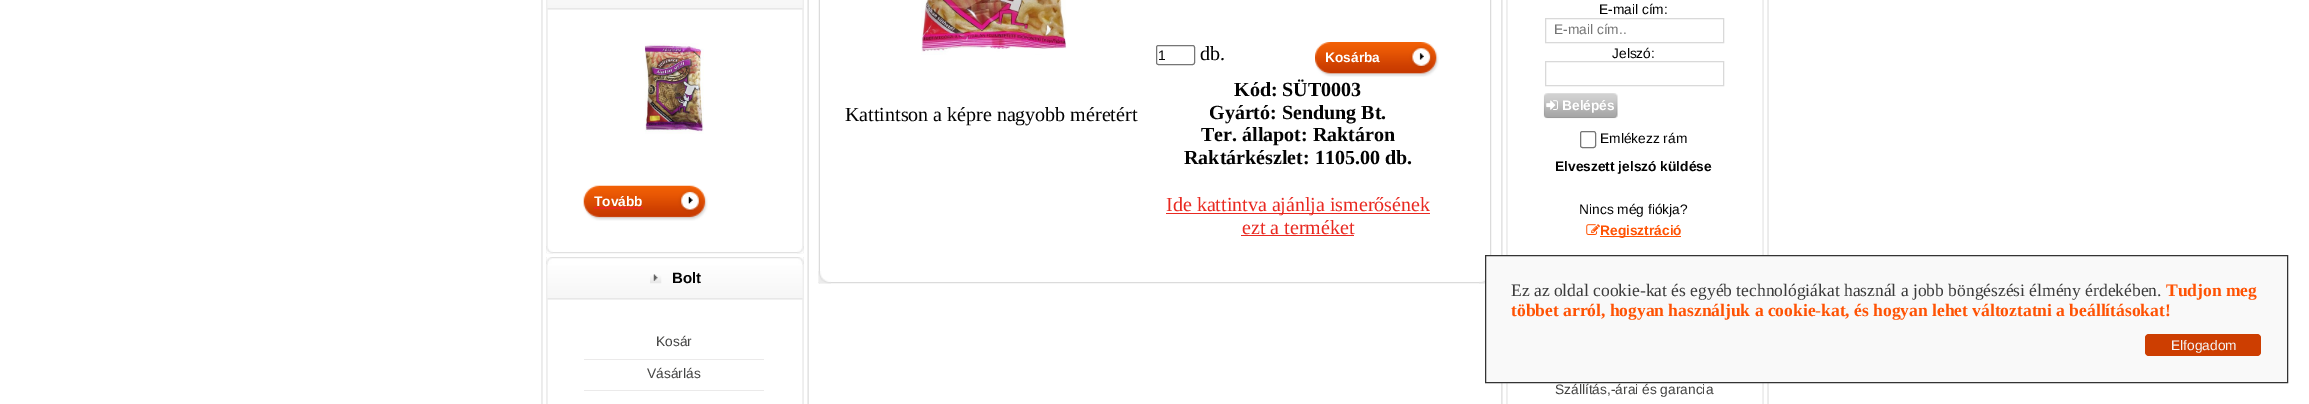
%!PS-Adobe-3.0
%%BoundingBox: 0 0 2309 404
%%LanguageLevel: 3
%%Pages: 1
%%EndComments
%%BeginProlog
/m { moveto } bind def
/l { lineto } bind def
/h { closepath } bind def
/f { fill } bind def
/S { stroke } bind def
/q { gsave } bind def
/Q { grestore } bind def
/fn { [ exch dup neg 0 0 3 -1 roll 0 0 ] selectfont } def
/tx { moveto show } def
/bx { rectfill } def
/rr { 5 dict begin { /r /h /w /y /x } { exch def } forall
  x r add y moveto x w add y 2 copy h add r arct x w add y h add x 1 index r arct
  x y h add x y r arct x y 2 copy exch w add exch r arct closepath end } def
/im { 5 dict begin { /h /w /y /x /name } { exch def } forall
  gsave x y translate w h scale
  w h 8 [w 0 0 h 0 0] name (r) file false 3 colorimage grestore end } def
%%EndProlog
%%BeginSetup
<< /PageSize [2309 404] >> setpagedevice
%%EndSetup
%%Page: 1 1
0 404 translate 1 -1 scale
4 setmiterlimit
1 setgray
0 0 2309 404 bx
(image0.raw) 818 282 667 2 im
(image1.raw) 1490 0 2 255 im
(image2.raw) 818 0 2 284 im
(image3.raw) 1479 271 6 13 im
(image4.raw) 818 271 13 13 im
(image5.raw) 921 0 146 55 im
/LiberationSerif-Regular 20 fn
0.012 setgray
(Kattintson a képre nagyobb méretért) 845 121 tx
0.463 setgray
1156.5 45.5 38 19 2 rr S
/LiberationSans-Regular 13.75 fn
0.012 setgray
(1) 1158 60 tx
/LiberationSerif-Regular 20 fn
(db.) 1200 60 tx
(image6.raw) 1315 42 124 35 im
/LiberationSans-Bold 13.75 fn
1 setgray
(Kosárba) 1325 62 tx
/LiberationSerif-Bold 20 fn
0.012 setgray
(Kód: SÜT0003) 1234 96 tx
(Gyártó: Sendung Bt.) 1209 119 tx
(Ter. állapot: Raktáron) 1201 141 tx
(Raktárkészlet: 1105.00 db.) 1184 164 tx
0.914 0.161 0.129 setrgbcolor
1166 213 264 1 bx
/LiberationSerif-Regular 20 fn
(Ide kattintva ajánlja ismerősének) 1166 211 tx
(ezt a terméket) 1242 234 tx
1241 235 113 1 bx
(image7.raw) 1767 0 2 404 im
(image8.raw) 1501 0 2 404 im
(image9.raw) 1762 0 2 255 im
(image10.raw) 1506 0 2 255 im
/LiberationSans-Regular 13.75 fn
0.012 setgray
(E-mail cím:) 1599 14 tx
0.851 setgray
1545.5 18.5 178 24 rectstroke
0.459 setgray
(E-mail cím..) 1554 34 tx
0.012 setgray
(Jelszó:) 1612 58 tx
0.851 setgray
1545.5 61.5 178 24 rectstroke
(image11.raw) 1543 93 75 26 im
(image12.raw) 1546 100 12 10 im
/LiberationSans-Bold 13.75 fn
1 setgray
(Belépés) 1562 110 tx
0.463 setgray
1580.5 131.5 15 16 2 rr S
/LiberationSans-Regular 13.75 fn
0.012 setgray
(Emlékezz rám) 1600 143 tx
/LiberationSans-Bold 13.75 fn
(Elveszett jelszó küldése) 1555 171 tx
/LiberationSans-Regular 13.75 fn
(Nincs még fiókja?) 1579 214 tx
(image13.raw) 1586 224 14 11 im
1 0.325 0.016 setrgbcolor
1600 236 81 1 bx
/LiberationSans-Bold 13.75 fn
(Regisztráció) 1600 235 tx
(image14.raw) 1762 383 2 21 im
(image15.raw) 1506 383 2 21 im
/LiberationSans-Regular 13.75 fn
0.263 0.263 0.259 setrgbcolor
(Szállítás,-árai és garancia) 1555 394 tx
(image16.raw) 807 0 2 404 im
(image17.raw) 541 0 2 404 im
(image18.raw) 546 252 258 2 im
(image19.raw) 802 0 2 253 im
(image20.raw) 546 0 2 253 im
(image21.raw) 797 246 7 8 im
(image22.raw) 546 246 7 8 im
(image23.raw) 547 0 256 10 im
(image24.raw) 644 43 60 91 im
(image25.raw) 583 185 125 36 im
/LiberationSans-Bold 13.75 fn
1 setgray
(Tovább) 594 206 tx
0.914 0.161 0.129 setrgbcolor
594 208 49 1 bx
(image18.raw) 546 257 258 2 im
(image26.raw) 802 257 2 147 im
(image27.raw) 546 257 2 147 im
(image28.raw) 798 257 6 7 im
(image29.raw) 546 257 6 7 im
(image30.raw) 547 265 256 35 im
(image31.raw) 650 274 12 10 im
/LiberationSans-Bold 15 fn
0.012 setgray
(Bolt) 672 283 tx
0.922 0.918 0.918 setrgbcolor
584 359 180 1 bx
/LiberationSans-Regular 13.75 fn
0.263 0.263 0.259 setrgbcolor
(Kosár) 656 346 tx
0.922 0.918 0.918 setrgbcolor
584 390 180 1 bx
0.263 0.263 0.259 setrgbcolor
(Vásárlás) 647 378 tx
0.976 setgray
1485.5 255.5 m 2287.5 255.5 l 2287.5 382.5 l 1485.5 382.5 l h q f Q
0.2 setgray
S
/LiberationSerif-Regular 17.5 fn
0.235 setgray
(Ez az oldal cookie-kat és egyéb technológiákat használ a jobb böngészési élmény érdekében.) 1511 296 tx
/LiberationSerif-Bold 17.5 fn
1 0.325 0.016 setrgbcolor
(Tudjon meg) 2166 296 tx
(többet arról, hogyan használjuk a cookie-kat, és hogyan lehet változtatni a beállításokat!) 1511 316 tx
0.804 0.243 0.004 setrgbcolor
2145 334 116 22 4 rr f
/LiberationSans-Regular 13.75 fn
0.961 setgray
(Elfogadom) 2171 350 tx
showpage
%%EOF
